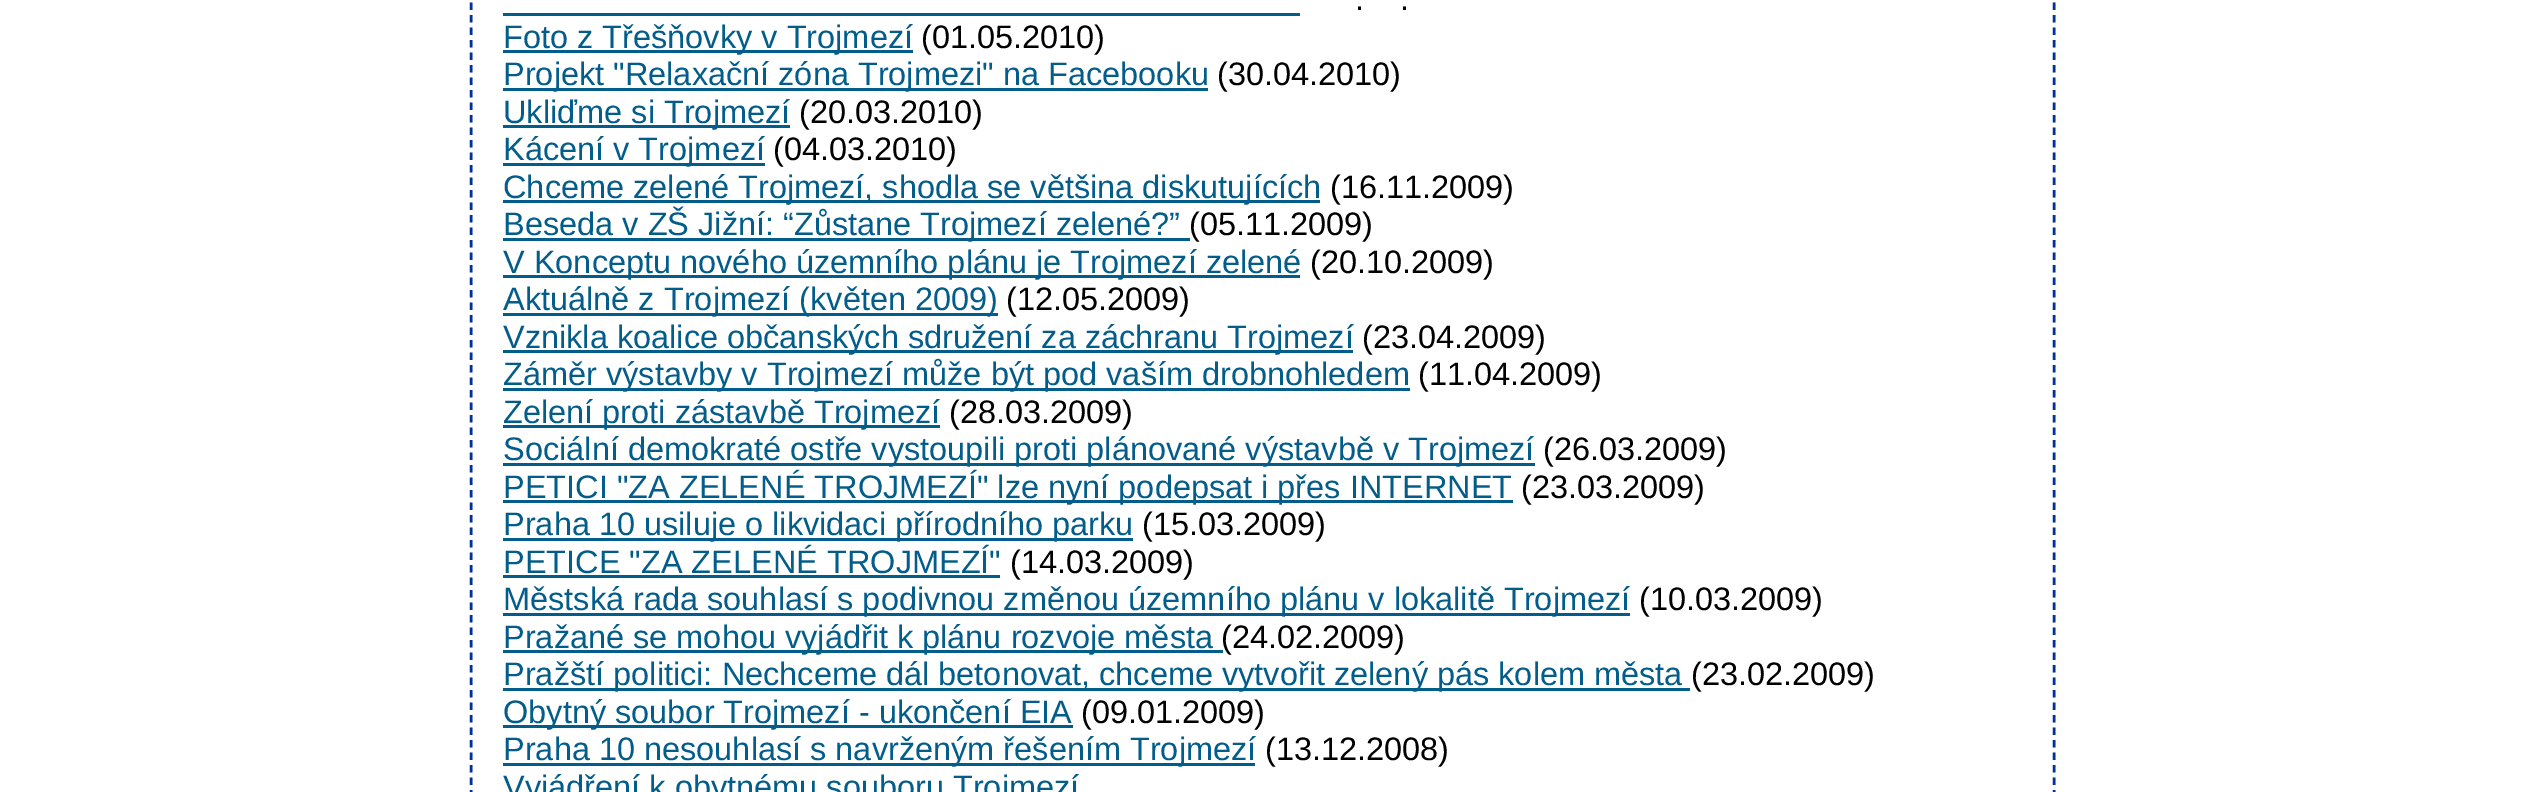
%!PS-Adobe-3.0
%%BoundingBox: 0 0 2524 792
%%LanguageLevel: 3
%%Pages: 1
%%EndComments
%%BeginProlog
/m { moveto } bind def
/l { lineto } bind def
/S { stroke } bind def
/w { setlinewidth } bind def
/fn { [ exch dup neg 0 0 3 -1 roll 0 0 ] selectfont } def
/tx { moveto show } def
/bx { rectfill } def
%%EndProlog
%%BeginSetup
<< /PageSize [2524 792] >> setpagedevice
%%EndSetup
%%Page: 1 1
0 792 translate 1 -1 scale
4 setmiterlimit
1 setgray
0 0 2524 792 bx
0 0.188 0.596 setrgbcolor
2.5 w
[7.5 5] 0 setdash
2054 -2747.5 m 2054 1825 l S
471 -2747.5 m 471 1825 l S
/LiberationSans-Regular 32.5 fn
0 setgray
(.) 1355 10 tx
(.) 1400 10 tx
0.012 0.365 0.541 setrgbcolor
503 13 797 3 bx
503 50 410 3 bx
(Foto z Třešňovky v Trojmezí) 503 48 tx
0 setgray
(\(01.05.2010\)) 921 48 tx
0.012 0.365 0.541 setrgbcolor
503 88 705 3 bx
(Projekt "Relaxační zóna Trojmezi" na Facebooku) 503 85 tx
0 setgray
(\(30.04.2010\)) 1217 85 tx
0.012 0.365 0.541 setrgbcolor
503 125 287 3 bx
(Ukliďme si Trojmezí) 503 123 tx
0 setgray
(\(20.03.2010\)) 799 123 tx
0.012 0.365 0.541 setrgbcolor
503 163 262 3 bx
(Kácení v Trojmezí) 503 160 tx
0 setgray
(\(04.03.2010\)) 773 160 tx
0.012 0.365 0.541 setrgbcolor
503 200 817 3 bx
(Chceme zelené Trojmezí, shodla se většina diskutujících) 503 198 tx
0 setgray
(\(16.11.2009\)) 1330 198 tx
0.012 0.365 0.541 setrgbcolor
503 238 687 3 bx
(Beseda v ZŠ Jižní: “Zůstane Trojmezí zelené?”) 503 235 tx
0 setgray
(\(05.11.2009\)) 1189 235 tx
0.012 0.365 0.541 setrgbcolor
503 275 797 3 bx
(V Konceptu nového územního plánu je Trojmezí zelené) 503 273 tx
0 setgray
(\(20.10.2009\)) 1310 273 tx
0.012 0.365 0.541 setrgbcolor
503 313 495 3 bx
(Aktuálně z Trojmezí \(květen 2009\)) 503 310 tx
0 setgray
(\(12.05.2009\)) 1006 310 tx
0.012 0.365 0.541 setrgbcolor
503 350 850 3 bx
(Vznikla koalice občanských sdružení za záchranu Trojmezí) 503 348 tx
0 setgray
(\(23.04.2009\)) 1362 348 tx
0.012 0.365 0.541 setrgbcolor
503 388 907 3 bx
(Záměr výstavby v Trojmezí může být pod vaším drobnohledem) 503 385 tx
0 setgray
(\(11.04.2009\)) 1418 385 tx
0.012 0.365 0.541 setrgbcolor
503 425 437 3 bx
(Zelení proti zástavbě Trojmezí) 503 423 tx
0 setgray
(\(28.03.2009\)) 949 423 tx
0.012 0.365 0.541 setrgbcolor
503 463 1032 3 bx
(Sociální demokraté ostře vystoupili proti plánované výstavbě v Trojmezí) 503 460 tx
0 setgray
(\(26.03.2009\)) 1543 460 tx
0.012 0.365 0.541 setrgbcolor
503 500 1010 3 bx
(PETICI "ZA ZELENÉ TROJMEZÍ" lze nyní podepsat i přes INTERNET) 503 498 tx
0 setgray
(\(23.03.2009\)) 1521 498 tx
0.012 0.365 0.541 setrgbcolor
503 538 630 3 bx
(Praha 10 usiluje o likvidaci přírodního parku) 503 535 tx
0 setgray
(\(15.03.2009\)) 1142 535 tx
0.012 0.365 0.541 setrgbcolor
(PETICE "ZA ZELENÉ TROJMEZÍ") 503 573 tx
503 575 497 3 bx
0 setgray
(\(14.03.2009\)) 1010 573 tx
0.012 0.365 0.541 setrgbcolor
503 613 1127 3 bx
(Městská rada souhlasí s podivnou změnou územního plánu v lokalitě Trojmezí) 503 610 tx
0 setgray
(\(10.03.2009\)) 1639 610 tx
0.012 0.365 0.541 setrgbcolor
503 650 720 3 bx
(Pražané se mohou vyjádřit k plánu rozvoje města) 503 648 tx
0 setgray
(\(24.02.2009\)) 1221 648 tx
0.012 0.365 0.541 setrgbcolor
503 688 1187 3 bx
(Pražští politici: Nechceme dál betonovat, chceme vytvořit zelený pás kolem města) 503 685 tx
0 setgray
(\(23.02.2009\)) 1691 685 tx
0.012 0.365 0.541 setrgbcolor
503 725 570 3 bx
(Obytný soubor Trojmezí - ukončení EIA) 503 723 tx
0 setgray
(\(09.01.2009\)) 1081 723 tx
0.012 0.365 0.541 setrgbcolor
503 763 752 3 bx
(Praha 10 nesouhlasí s navrženým řešením Trojmezí) 503 760 tx
0 setgray
(\(13.12.2008\)) 1265 760 tx
0.012 0.365 0.541 setrgbcolor
(Vyjádření k obytnému souboru Trojmezí) 503 798 tx
showpage
%%EOF
